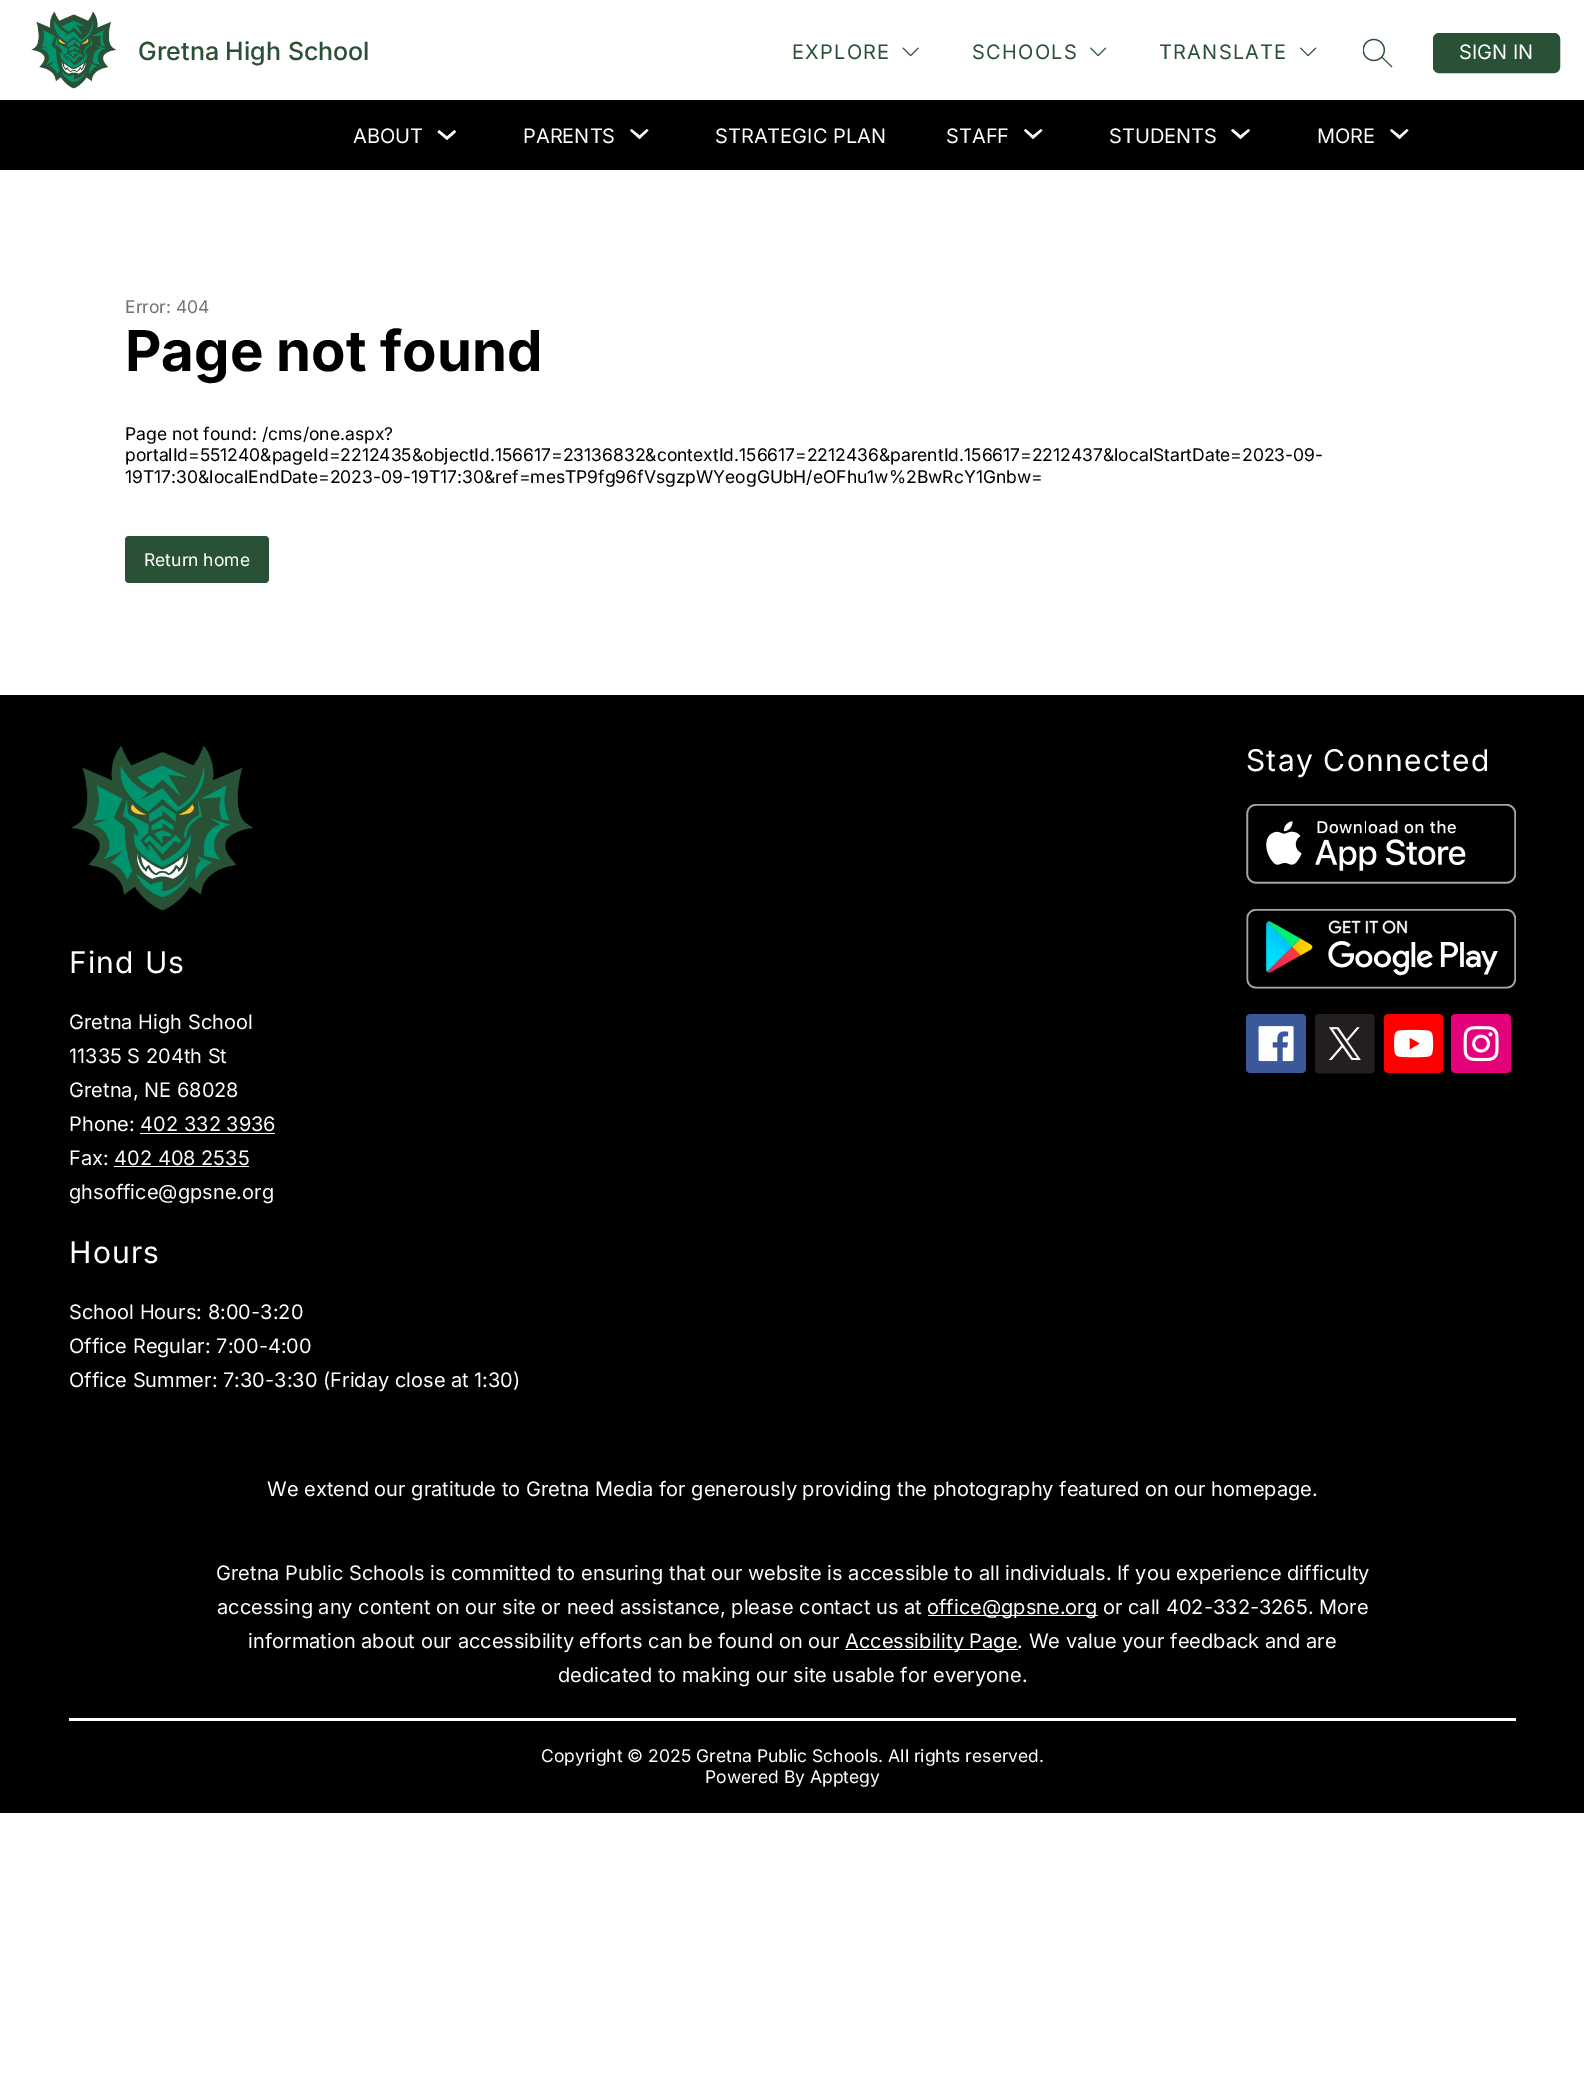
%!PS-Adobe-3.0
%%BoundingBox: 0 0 1584 2080
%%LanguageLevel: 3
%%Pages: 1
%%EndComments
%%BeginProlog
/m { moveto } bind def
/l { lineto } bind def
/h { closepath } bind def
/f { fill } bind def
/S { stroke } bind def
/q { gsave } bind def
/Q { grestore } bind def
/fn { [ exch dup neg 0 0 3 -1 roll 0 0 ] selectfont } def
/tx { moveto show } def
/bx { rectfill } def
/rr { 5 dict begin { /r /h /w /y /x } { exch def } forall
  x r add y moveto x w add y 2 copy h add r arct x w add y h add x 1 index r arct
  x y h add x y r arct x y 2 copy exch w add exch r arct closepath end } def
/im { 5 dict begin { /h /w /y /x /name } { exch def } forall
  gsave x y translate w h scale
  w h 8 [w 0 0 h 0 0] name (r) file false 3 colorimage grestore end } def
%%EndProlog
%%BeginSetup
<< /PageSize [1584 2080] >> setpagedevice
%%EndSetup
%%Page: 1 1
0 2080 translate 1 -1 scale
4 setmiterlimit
1 setgray
0 0 1584 2080 bx
(image0.raw) 31 11 86 78 im
/Inter-Medium 25 fn
0.161 0.318 0.208 setrgbcolor
(Gretna High School) 138 60 tx
/Inter-Regular 20 fn
792 59 m 1.25 0 (EXPLORE) ashow
(image1.raw) 902 47 17 10 im
972 59 m 1.25 0 (SCHOOLS) ashow
(image2.raw) 1090 47 17 10 im
1159 59 m 1.25 0 (TRANSLATE) ashow
(image2.raw) 1300 47 17 10 im
(image3.raw) 1363 38 30 30 im
1433.5 33.5 126 39 5.5 rr q f Q
S
1 setgray
(SIGN IN) 1459 59 tx
0 setgray
0 100 1584 70 bx
1 setgray
(ABOUT) 353 143 tx
454.5 130 m 447 136.5 l 439 130 l 437.5 132 l 447 140 l 456 132 l h eofill
(PARENTS) 523 143 tx
647 129 m 639.5 135.5 l 631.5 129 l 630 130.5 l 639.5 139 l 648.5 130.5 l h eofill
(STRATEGIC PLAN) 715 143 tx
(STAFF) 946 143 tx
1041 129 m 1033 135.5 l 1025.5 129 l 1024 130.5 l 1033 139 l 1042.5 130.5 l h eofill
(STUDENTS) 1109 143 tx
1248.5 129 m 1240.5 135.5 l 1233 129 l 1231 130.5 l 1240.5 139 l 1250 130.5 l h eofill
(MORE) 1317 143 tx
1407 129 m 1399.5 135.5 l 1391.5 129 l 1390 130.5 l 1399.5 139 l 1408.5 130.5 l h eofill
/Inter-Regular 17.5 fn
0.455 setgray
(Error: 404) 125 313 tx
/Inter-Bold 56.25 fn
0 setgray
(Page not found) 125 371 tx
/Inter-Regular 17.5 fn
(Page not found: /cms/one.aspx?) 125 440 tx
(portalId=551240&pageId=2212435&objectId.156617=23136832&contextId.156617=2212436&parentId.156617=2212437&localStartDate=2023-09-) 125 461 tx
(19T17:30&localEndDate=2023-09-19T17:30&ref=mesTP9fg96fVsgzpWYeogGUbH/eOFhu1w%2BwRcY1Gnbw=) 125 483 tx
0.161 0.318 0.208 setrgbcolor
125 536 144 47 4 rr f
1 setgray
(Return home) 144 566 tx
0 setgray
0 695 1584 1118 bx
/Inter-Regular 30 fn
1 setgray
1246 771 m 1.25 0 (Stay Connected) ashow
(image4.raw) 1246 804 270 80 im
(image5.raw) 1246 909 270 80 im
(image6.raw) 1246 1014 60 59 im
(image7.raw) 1315 1014 60 60 im
(image8.raw) 1384 1014 59 59 im
(image9.raw) 1451 1014 60 59 im
(image10.raw) 72 745 181 166 im
69 973 m 1.25 0 (Find Us) ashow
/Inter-Regular 20 fn
(Gretna High School) 69 1029 tx
(11335 S 204th St) 69 1063 tx
(Gretna, NE 68028) 69 1097 tx
(Phone: 402 332 3936) 69 1131 tx
140 1133 135 1 bx
(Fax: 402 408 2535) 69 1165 tx
114 1166 135 1 bx
(ghsoffice@gpsne.org) 69 1199 tx
/Inter-Regular 30 fn
69 1263 m 1.25 0 (Hours) ashow
/Inter-Regular 20 fn
(School Hours: 8:00-3:20) 69 1319 tx
(Office Regular: 7:00-4:00) 69 1353 tx
(Office Summer: 7:30-3:30 \(Friday close at 1:30\)) 69 1387 tx
(We extend our gratitude to Gretna Media for generously providing the photography featured on our homepage.) 267 1496 tx
(Gretna Public Schools is committed to ensuring that our website is accessible to all individuals. If you experience difficulty) 216 1580 tx
(accessing any content on our site or need assistance, please contact us at) 217 1614 tx
928 1615 170 1 bx
(office@gpsne.org or call 402-332-3265. More) 927 1614 tx
(information about our accessibility efforts can be found on our) 248 1648 tx
845 1649 173 1 bx
(Accessibility Page. We value your feedback and are) 845 1648 tx
(dedicated to making our site usable for everyone.) 558 1682 tx
69 1718 1447 3 bx
/Inter-Regular 17.5 fn
(Copyright © 2025 Gretna Public Schools. All rights reserved.) 541 1762 tx
(Powered By Apptegy) 705 1783 tx
showpage
%%EOF
